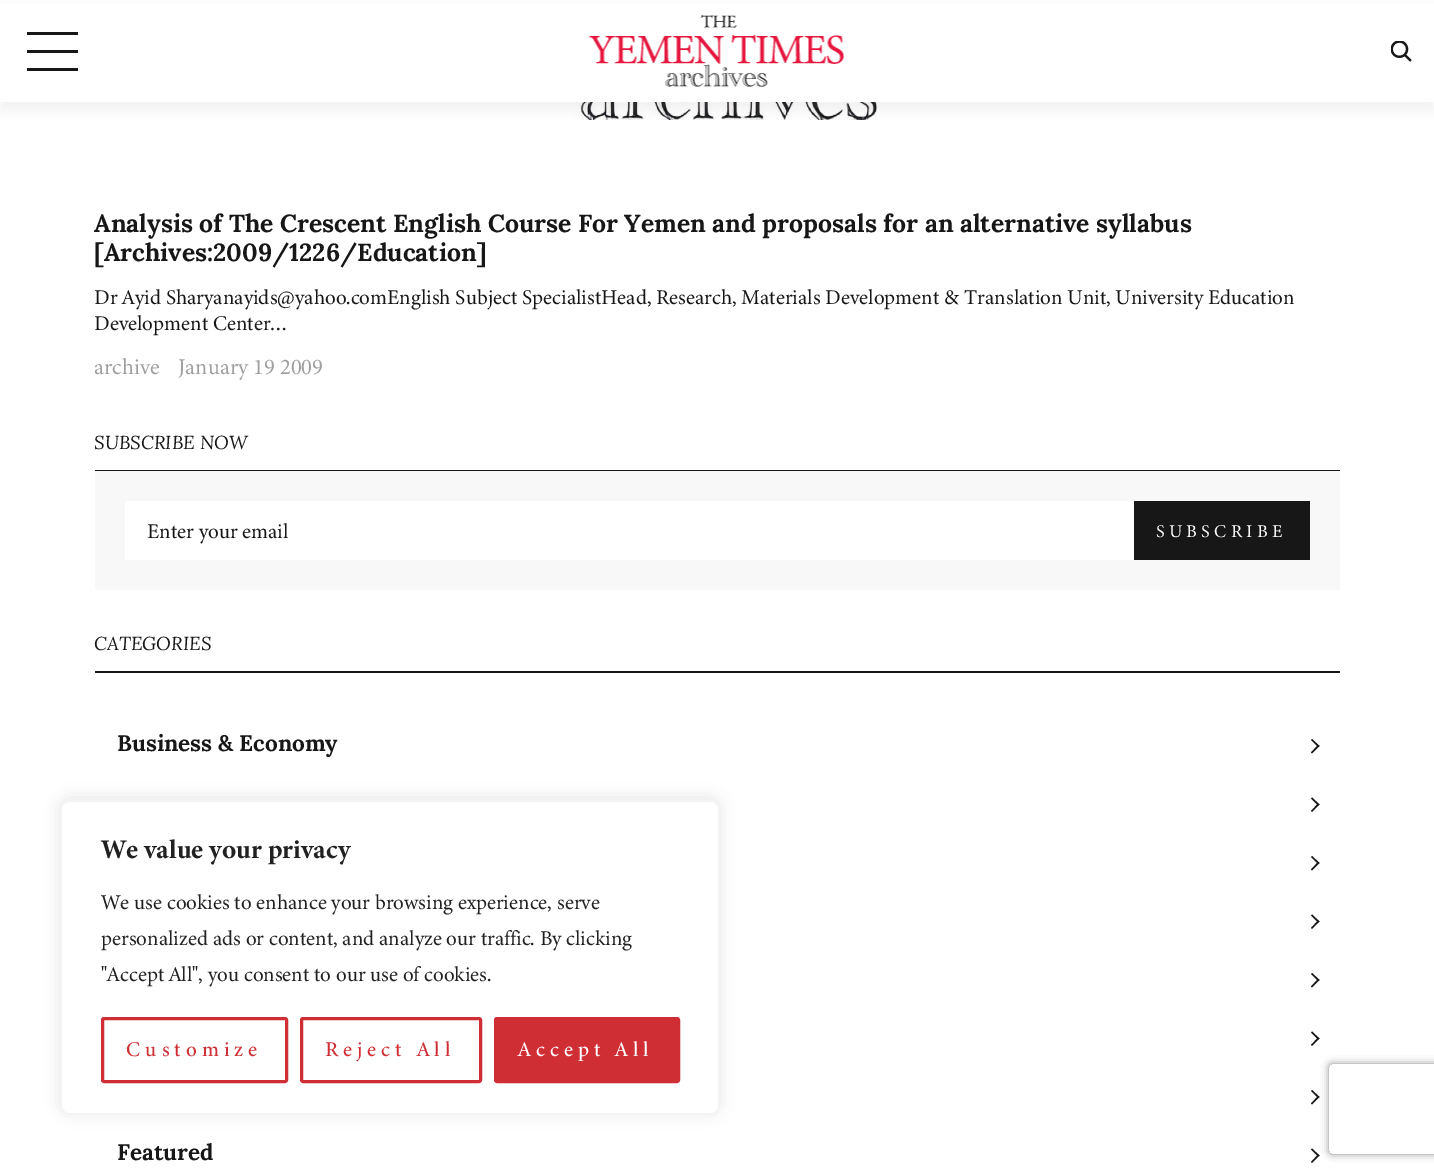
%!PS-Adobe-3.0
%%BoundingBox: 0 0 1434 1174
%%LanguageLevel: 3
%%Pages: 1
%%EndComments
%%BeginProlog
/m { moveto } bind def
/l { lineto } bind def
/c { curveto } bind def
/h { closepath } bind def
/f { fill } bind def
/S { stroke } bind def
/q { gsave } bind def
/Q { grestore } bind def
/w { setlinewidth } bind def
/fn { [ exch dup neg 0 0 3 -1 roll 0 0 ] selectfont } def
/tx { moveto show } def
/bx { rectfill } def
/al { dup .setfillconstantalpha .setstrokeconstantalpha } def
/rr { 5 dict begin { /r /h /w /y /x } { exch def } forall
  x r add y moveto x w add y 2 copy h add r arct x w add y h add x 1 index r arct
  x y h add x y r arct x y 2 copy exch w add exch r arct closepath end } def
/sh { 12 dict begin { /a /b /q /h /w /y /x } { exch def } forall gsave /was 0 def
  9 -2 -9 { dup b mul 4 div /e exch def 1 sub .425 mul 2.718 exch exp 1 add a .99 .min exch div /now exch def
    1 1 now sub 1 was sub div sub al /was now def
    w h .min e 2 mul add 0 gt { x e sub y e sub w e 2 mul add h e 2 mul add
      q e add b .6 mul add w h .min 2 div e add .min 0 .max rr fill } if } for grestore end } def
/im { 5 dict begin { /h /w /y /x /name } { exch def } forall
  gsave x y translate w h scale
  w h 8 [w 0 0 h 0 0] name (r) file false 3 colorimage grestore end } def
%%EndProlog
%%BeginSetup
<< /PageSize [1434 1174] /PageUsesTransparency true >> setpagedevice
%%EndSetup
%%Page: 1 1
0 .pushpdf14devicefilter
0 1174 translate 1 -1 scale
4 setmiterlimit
1 setgray
0 0 1434 1174 bx
(image2.raw) 321 102 826 18 im
0.412 setgray
0 8 1434 102 0 4.5 0.08 sh
1 setgray
0 4 1434 98 bx
0.09 setgray
27 32 51 3 bx
27 50 51 3 bx
27 68 51 3 bx
(image0.raw) 589 15 256 72 im
(image1.raw) 1391 41 21 21 im
/Lora-Bold 24.75 fn
(Analysis of The Crescent English Course For Yemen and proposals for an alternative syllabus) 94 232 tx
([Archives:2009/1226/Education]) 94 261 tx
/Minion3-Regular 21 fn
(Dr Ayid Sharyanayids@yahoo.comEnglish Subject SpecialistHead, Research, Materials Development & Translation Unit, University Education) 94 304 tx
(Development Center…) 94 330 tx
/Minion3-Regular 22.5 fn
0.624 setgray
(archive) 94 374 tx
(January 19 2009) 178 374 tx
0.09 setgray
95 470 1245 1 bx
/Lora-Italic 18.75 fn
(SUBSCRIBE NOW) 94 449 tx
0.973 setgray
95 471 1245 119 bx
1 setgray
125 501 1009 59 bx
/Minion3-Regular 21 fn
0.09 setgray
(Enter your email) 147 538 tx
1134 501 176 59 bx
/Minion3-Regular 18 fn
1 setgray
1156 537 m 4.25 0 (SUBSCRIBE) ashow
0.09 setgray
95 671 1245 2 bx
/Lora-Italic 18.75 fn
(CATEGORIES) 94 650 tx
/Lora-Bold 22.5 fn
(Business & Economy) 117 751 tx
1312 739 m 1319.5 746 l 1318 747 l 1311 740 l h f
1318 745 m 1319.5 746 l 1312 753.5 l 1311 752.5 l h 1312 797.5 m 1319.5 804.5 l 1318 805.5 l 1311 798.5 l h f
1318 803.5 m 1319.5 804.5 l 1312 812 l 1311 811 l h 1312 856 m 1319.5 863 l 1318 864 l 1311 857 l h f
1318 862 m 1319.5 863 l 1312 870.5 l 1311 869.5 l h 1312 914.5 m 1319.5 921.5 l 1318 922.5 l 1311 915.5 l h f
1318 920.5 m 1319.5 921.5 l 1312 929 l 1311 928 l h 1312 973 m 1319.5 980 l 1318 981 l 1311 974 l h f
1318 979 m 1319.5 980 l 1312 987.5 l 1311 986.5 l h 1312 1031.5 m 1319.5 1038.5 l 1318 1039.5 l 1311 1032.5 l h f
1318 1037.5 m 1319.5 1038.5 l 1312 1046 l 1311 1045 l h 1312 1090 m 1319.5 1097 l 1318 1098 l 1311 1091 l h f
1318 1096 m 1319.5 1097 l 1312 1104.5 l 1311 1103.5 l h f
(Featured) 117 1160 tx
1312 1148.5 m 1319.5 1155.5 l 1318 1156.5 l 1311 1149.5 l h f
1318 1154.5 m 1319.5 1155.5 l 1312 1163 l 1311 1162 l h f
0.675 0.671 0.671 setrgbcolor
60 798 660 315 9 7.5 0.3 sh
1 setgray
61 801 658 313 8 rr q f Q
0.957 setgray
2 w
S
/Minion3-Bold 27 fn
0.129 setgray
(We value your privacy) 101 858 tx
/Minion3-Regular 21 fn
(We use cookies to enhance your browsing experience, serve) 101 909 tx
(personalized ads or content, and analyze our traffic. By clicking) 101 945 tx
("Accept All", you consent to our use of cookies.) 101 981 tx
0.812 0.18 0.204 setrgbcolor
3 w
102.5 1018.5 184 63 1.5 rr S
/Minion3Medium-Medium 21 fn
126 1056 m 5 0 (Customize) ashow
301.5 1018.5 179 63 1.5 rr S
325 1056 m 5 0 (Reject All) ashow
495.5 1018.5 183 63 1.5 rr q f Q
S
1 setgray
518 1056 m 5 0 (Accept All) ashow
q
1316 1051 m 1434 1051 l 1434 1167 l 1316 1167 l h 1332 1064 m 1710 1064 l 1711.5 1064 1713 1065.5 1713 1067 c 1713 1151 l 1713 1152.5 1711.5 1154 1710 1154 c 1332 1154 l 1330.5 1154 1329 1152.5 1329 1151 c 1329 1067 l 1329 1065.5 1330.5 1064 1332 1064 c h eoclip newpath
0.545 setgray
1329 1064 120 90 3 4 1 sh
Q
.poppdf14devicefilter showpage
%%EOF
